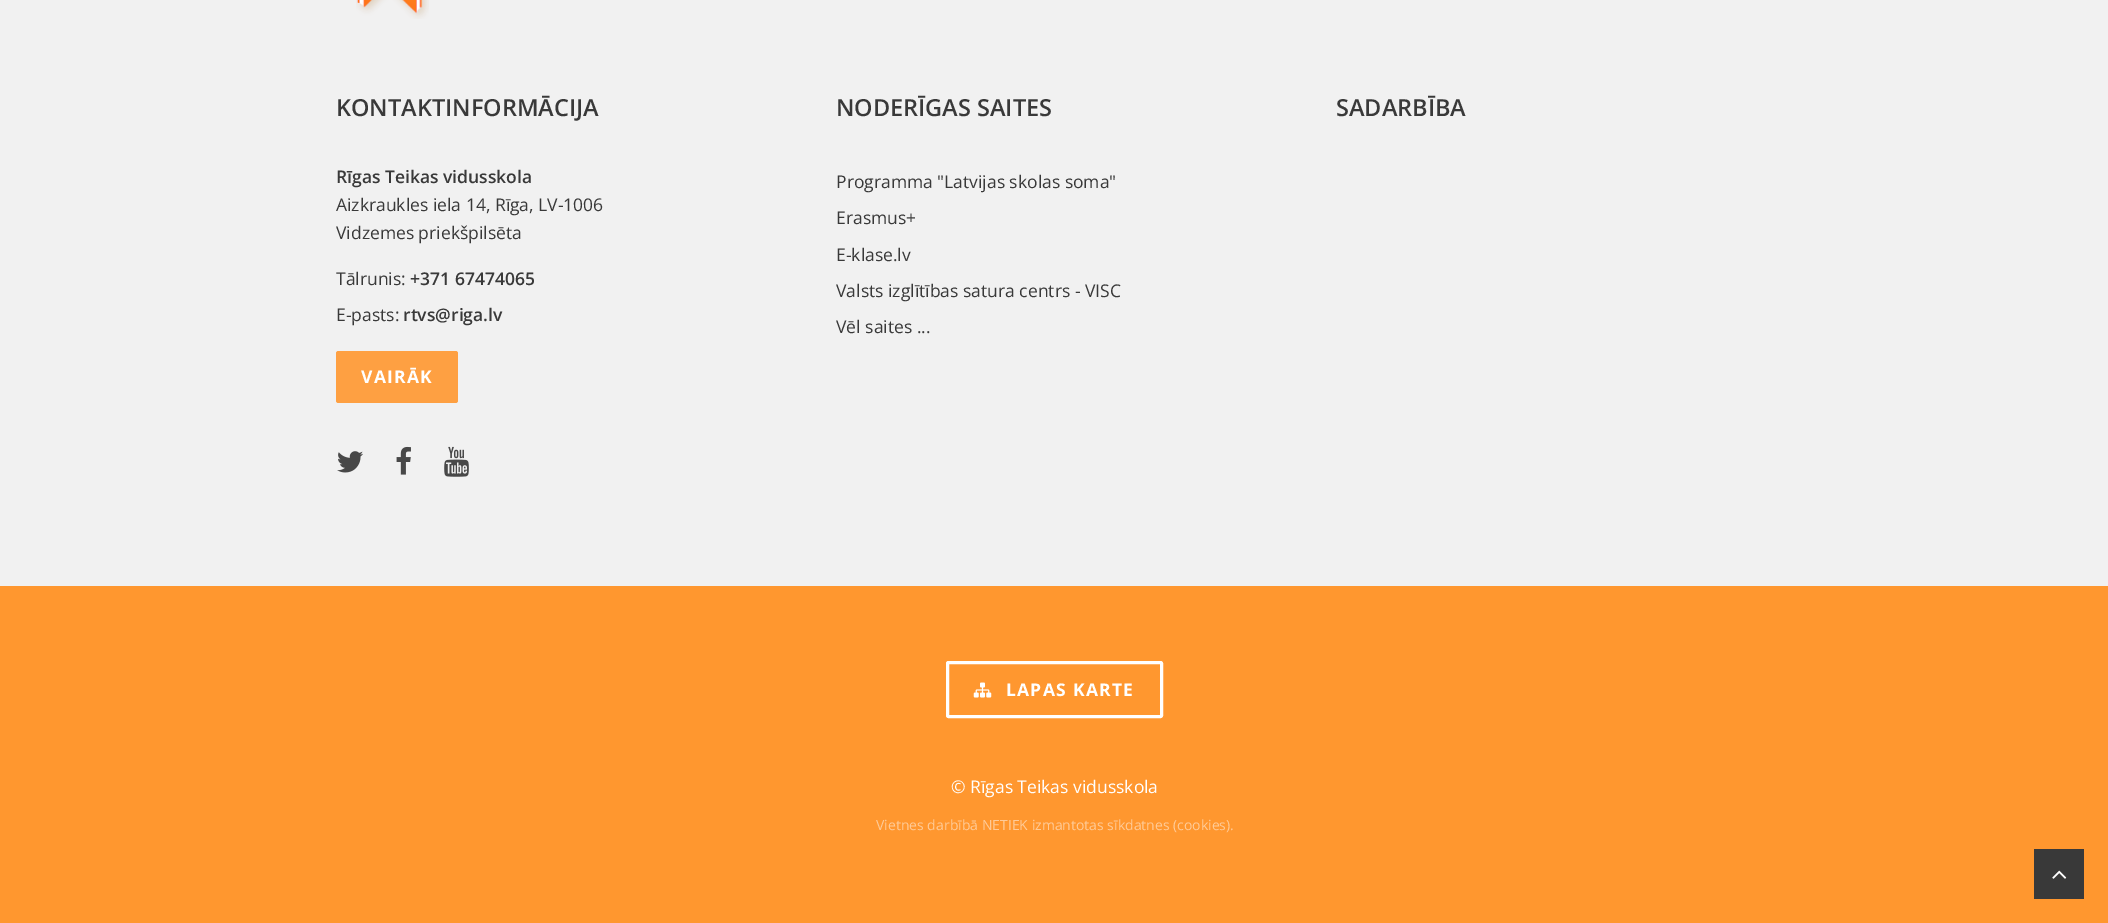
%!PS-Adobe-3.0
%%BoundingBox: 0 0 2108 923
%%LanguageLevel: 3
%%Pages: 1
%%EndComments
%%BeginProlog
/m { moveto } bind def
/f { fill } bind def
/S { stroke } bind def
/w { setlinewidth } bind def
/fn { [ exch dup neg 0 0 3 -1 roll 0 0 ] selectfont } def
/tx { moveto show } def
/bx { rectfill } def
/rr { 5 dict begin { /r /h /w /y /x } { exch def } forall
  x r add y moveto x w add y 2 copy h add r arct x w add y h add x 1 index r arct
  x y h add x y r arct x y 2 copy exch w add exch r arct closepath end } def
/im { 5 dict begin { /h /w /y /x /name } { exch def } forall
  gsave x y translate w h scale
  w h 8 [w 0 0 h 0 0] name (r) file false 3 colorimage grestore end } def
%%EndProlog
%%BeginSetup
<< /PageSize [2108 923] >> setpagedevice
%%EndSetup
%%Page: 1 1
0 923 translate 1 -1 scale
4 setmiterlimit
0.945 setgray
0 0 2108 923 bx
(image0.raw) 356 0 73 19 im
/OpenSans-SemiBold 23.5 fn
0.224 setgray
(KONTAKTINFORMĀCIJA) 336 116 tx
/OpenSans-SemiBold 17.5 fn
(Rīgas Teikas vidusskola) 336 183 tx
/OpenSans-Regular 17.5 fn
(Aizkraukles iela 14, Rīga, LV-1006) 336 211 tx
(Vidzemes priekšpilsēta) 336 239 tx
(Tālrunis:) 336 285 tx
/OpenSans-SemiBold 17.5 fn
(+371 67474065) 410 285 tx
/OpenSans-Regular 17.5 fn
(E-pasts:) 336 321 tx
/OpenSans-SemiBold 17.5 fn
(rtvs@riga.lv) 403 321 tx
0.996 0.627 0.259 setrgbcolor
336 351 122 52 2.5 rr f
/OpenSans-Bold 17.5 fn
1 setgray
361 383 m 1.25 0 (VAIRĀK) ashow
(image1.raw) 337 451 26 22 im
(image2.raw) 396 446 15 29 im
(image3.raw) 444 446 25 31 im
/OpenSans-SemiBold 23.5 fn
0.224 setgray
(NODERĪGAS SAITES) 836 116 tx
/OpenSans-Regular 17.5 fn
(Programma "Latvijas skolas soma") 836 188 tx
(Erasmus+) 836 224 tx
(E-klase.lv) 836 261 tx
(Valsts izglītības satura centrs - VISC) 836 297 tx
(Vēl saites ...) 836 333 tx
/OpenSans-SemiBold 23.5 fn
(SADARBĪBA) 1336 116 tx
1 0.592 0.184 setrgbcolor
0 586 2108 337 bx
1 setgray
3 w
947.5 662.5 214 54 1 rr S
(image4.raw) 973 682 19 16 im
/OpenSans-Bold 17.5 fn
1006 696 m 1.25 0 (LAPAS KARTE) ashow
/OpenSans-Regular 17.5 fn
(© Rīgas Teikas vidusskola) 951 793 tx
/OpenSans-Regular 14 fn
1 0.796 0.592 setrgbcolor
(Vietnes darbībā NETIEK izmantotas sīkdatnes \(cookies\).) 876 830 tx
0.224 setgray
2034 849 50 50 bx
(image5.raw) 2052 870 15 9 im
showpage
%%EOF
